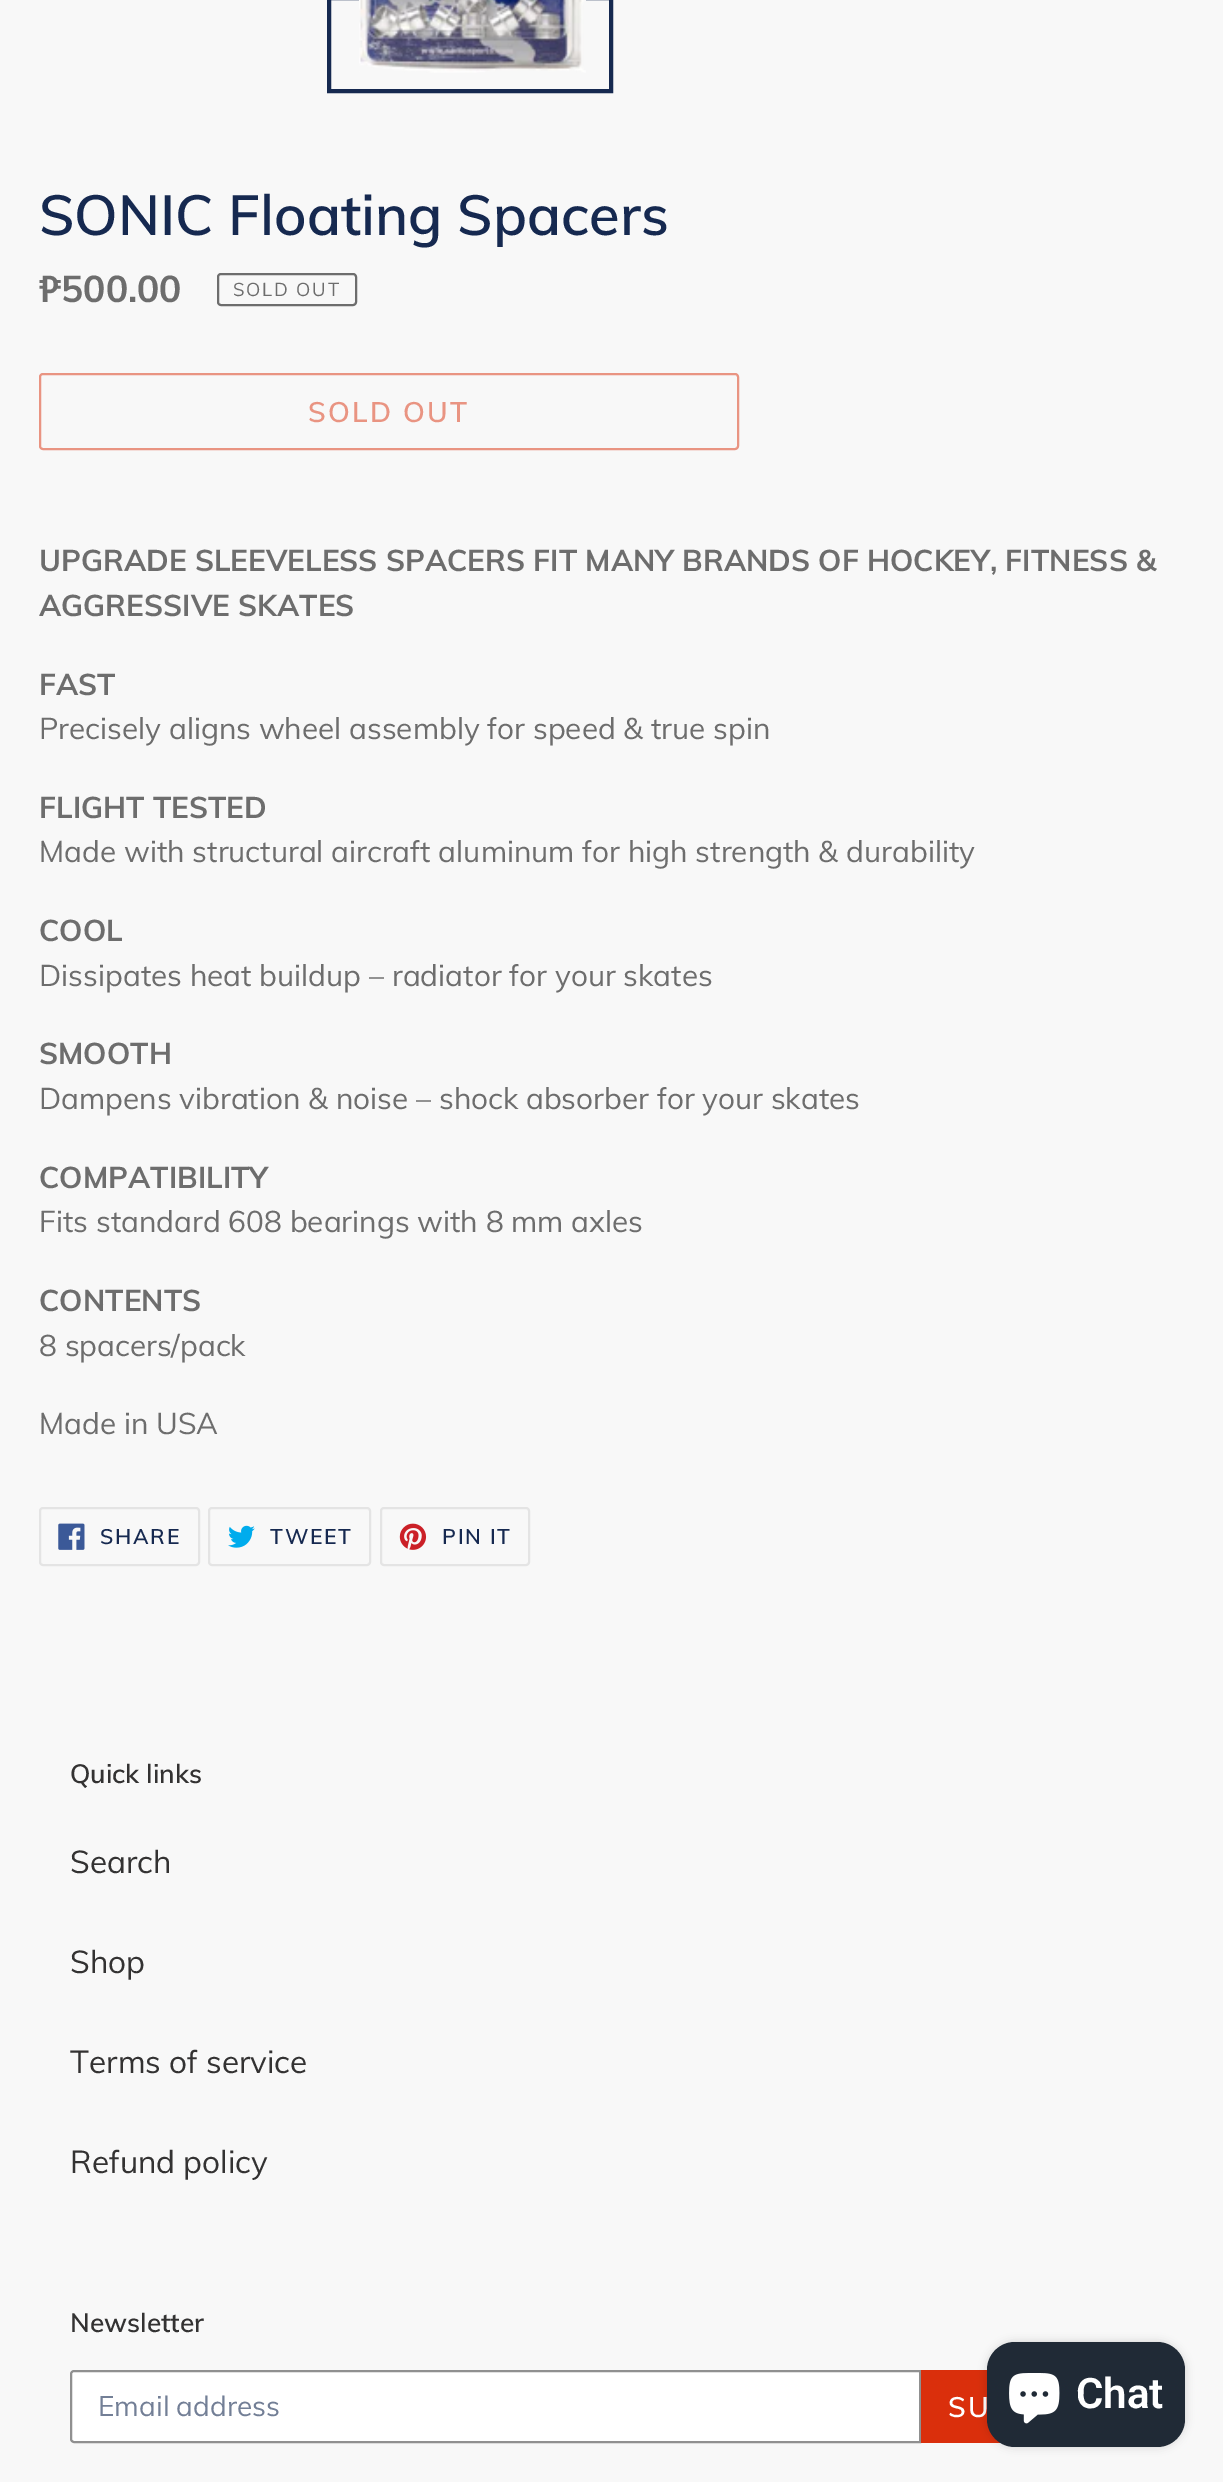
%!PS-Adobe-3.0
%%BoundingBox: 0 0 1223 2482
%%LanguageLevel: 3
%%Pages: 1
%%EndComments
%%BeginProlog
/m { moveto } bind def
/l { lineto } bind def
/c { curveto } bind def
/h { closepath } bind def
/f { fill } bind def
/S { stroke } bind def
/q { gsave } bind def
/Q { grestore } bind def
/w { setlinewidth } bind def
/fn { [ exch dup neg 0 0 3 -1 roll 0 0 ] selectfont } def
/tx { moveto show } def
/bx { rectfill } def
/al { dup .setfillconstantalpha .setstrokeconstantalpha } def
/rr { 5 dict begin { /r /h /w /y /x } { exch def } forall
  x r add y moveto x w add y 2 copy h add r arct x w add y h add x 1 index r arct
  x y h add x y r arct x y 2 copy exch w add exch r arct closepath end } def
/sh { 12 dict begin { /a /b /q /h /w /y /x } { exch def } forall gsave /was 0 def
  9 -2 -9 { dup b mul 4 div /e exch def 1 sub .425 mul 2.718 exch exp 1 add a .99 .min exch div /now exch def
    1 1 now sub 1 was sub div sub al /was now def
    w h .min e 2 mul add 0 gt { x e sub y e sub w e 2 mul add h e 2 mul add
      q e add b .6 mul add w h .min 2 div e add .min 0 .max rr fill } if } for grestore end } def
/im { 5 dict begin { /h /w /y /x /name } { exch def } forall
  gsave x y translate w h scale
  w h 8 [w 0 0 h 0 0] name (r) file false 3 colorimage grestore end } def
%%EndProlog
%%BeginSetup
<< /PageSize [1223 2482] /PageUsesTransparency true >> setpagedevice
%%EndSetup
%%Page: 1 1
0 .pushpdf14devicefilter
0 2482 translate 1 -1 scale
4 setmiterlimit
0.973 setgray
0 0 1223 2482 bx
0.086 0.161 0.314 setrgbcolor
4 w
329 -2 282 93 rectstroke
(image0.raw) 359 0 227 73 im
/Muli-SemiBold 56 fn
(SONIC Floating Spacers) 39 235 tx
/Muli-Bold 37 fn
0.427 setgray
(₱500.00) 39 302 tx
2 w
218 274 138 31 3 rr S
/Muli-Regular 18.5 fn
233 296 m 1.75 0 (SOLD OUT) ashow
0.914 0.58 0.51 setrgbcolor
40 374 698 75 3 rr S
/Muli-SemiBold 28 fn
308 422 m 2.25 0 (SOLD OUT) ashow
/Muli-Bold 29.75 fn
0.427 setgray
(UPGRADE SLEEVELESS SPACERS FIT MANY BRANDS OF HOCKEY, FITNESS &) 39 571 tx
(AGGRESSIVE SKATES) 39 616 tx
(FAST) 39 695 tx
/Muli-Regular 29.75 fn
(Precisely aligns wheel assembly for speed & true spin) 39 739 tx
/Muli-Bold 29.75 fn
(FLIGHT TESTED) 39 818 tx
/Muli-Regular 29.75 fn
(Made with structural aircraft aluminum for high strength & durability) 39 862 tx
/Muli-Bold 29.75 fn
(COOL) 39 941 tx
/Muli-Regular 29.75 fn
(Dissipates heat buildup – radiator for your skates) 39 986 tx
/Muli-Bold 29.75 fn
(SMOOTH) 39 1064 tx
/Muli-Regular 29.75 fn
(Dampens vibration & noise – shock absorber for your skates) 39 1109 tx
/Muli-Bold 29.75 fn
(COMPATIBILITY) 39 1188 tx
/Muli-Regular 29.75 fn
(Fits standard 608 bearings with 8 mm axles) 39 1232 tx
/Muli-Bold 29.75 fn
(CONTENTS) 39 1311 tx
/Muli-Regular 29.75 fn
(8 spacers/pack) 39 1356 tx
(Made in USA) 39 1434 tx
0.894 setgray
40 1508 159 57 3 rr S
(image1.raw) 58 1523 27 27 im
/Muli-SemiBold 21 fn
0.086 0.161 0.314 setrgbcolor
100 1544 m 1.75 0 (SHARE) ashow
0.894 setgray
209 1508 161 57 3 rr S
(image2.raw) 228 1525 27 23 im
0.086 0.161 0.314 setrgbcolor
270 1544 m 1.75 0 (TWEET) ashow
0.894 setgray
381 1508 148 57 3 rr S
(image3.raw) 399 1523 28 27 im
0.086 0.161 0.314 setrgbcolor
442 1544 m 1.75 0 (PIN IT) ashow
/Muli-SemiBold 26.25 fn
0.2 0.196 0.196 setrgbcolor
(Quick links) 70 1783 tx
/Muli-Regular 31.5 fn
(Search) 70 1873 tx
(Shop) 70 1973 tx
(Terms of service) 70 2073 tx
(Refund policy) 70 2173 tx
/Muli-SemiBold 26.25 fn
(Newsletter) 70 2332 tx
1 setgray
74 2371 m 920 2371 l 920 2442 l 74 2442 l 72.5 2442 71 2440.5 71 2439 c 71 2374 l 71 2372.5 72.5 2371 74 2371 c h q f Q
0.565 setgray
S
/Muli-Regular 28 fn
0.451 0.498 0.588 setrgbcolor
(Email address) 98 2416 tx
0.855 0.184 0.047 setrgbcolor
921 2370 80 73 bx
/Muli-SemiBold 28 fn
1 setgray
948 2417 m 2.25 0 (SU) ashow
0 setgray
987 2342 198 105 28 4.5 0.15 sh
0.125 0.165 0.212 setrgbcolor
987 2342 198 105 28 rr f
(image4.raw) 1009 2373 51 51 im
/Roboto-SemiBold 42 fn
1 setgray
(Chat) 1076 2408 tx
.poppdf14devicefilter showpage
%%EOF
